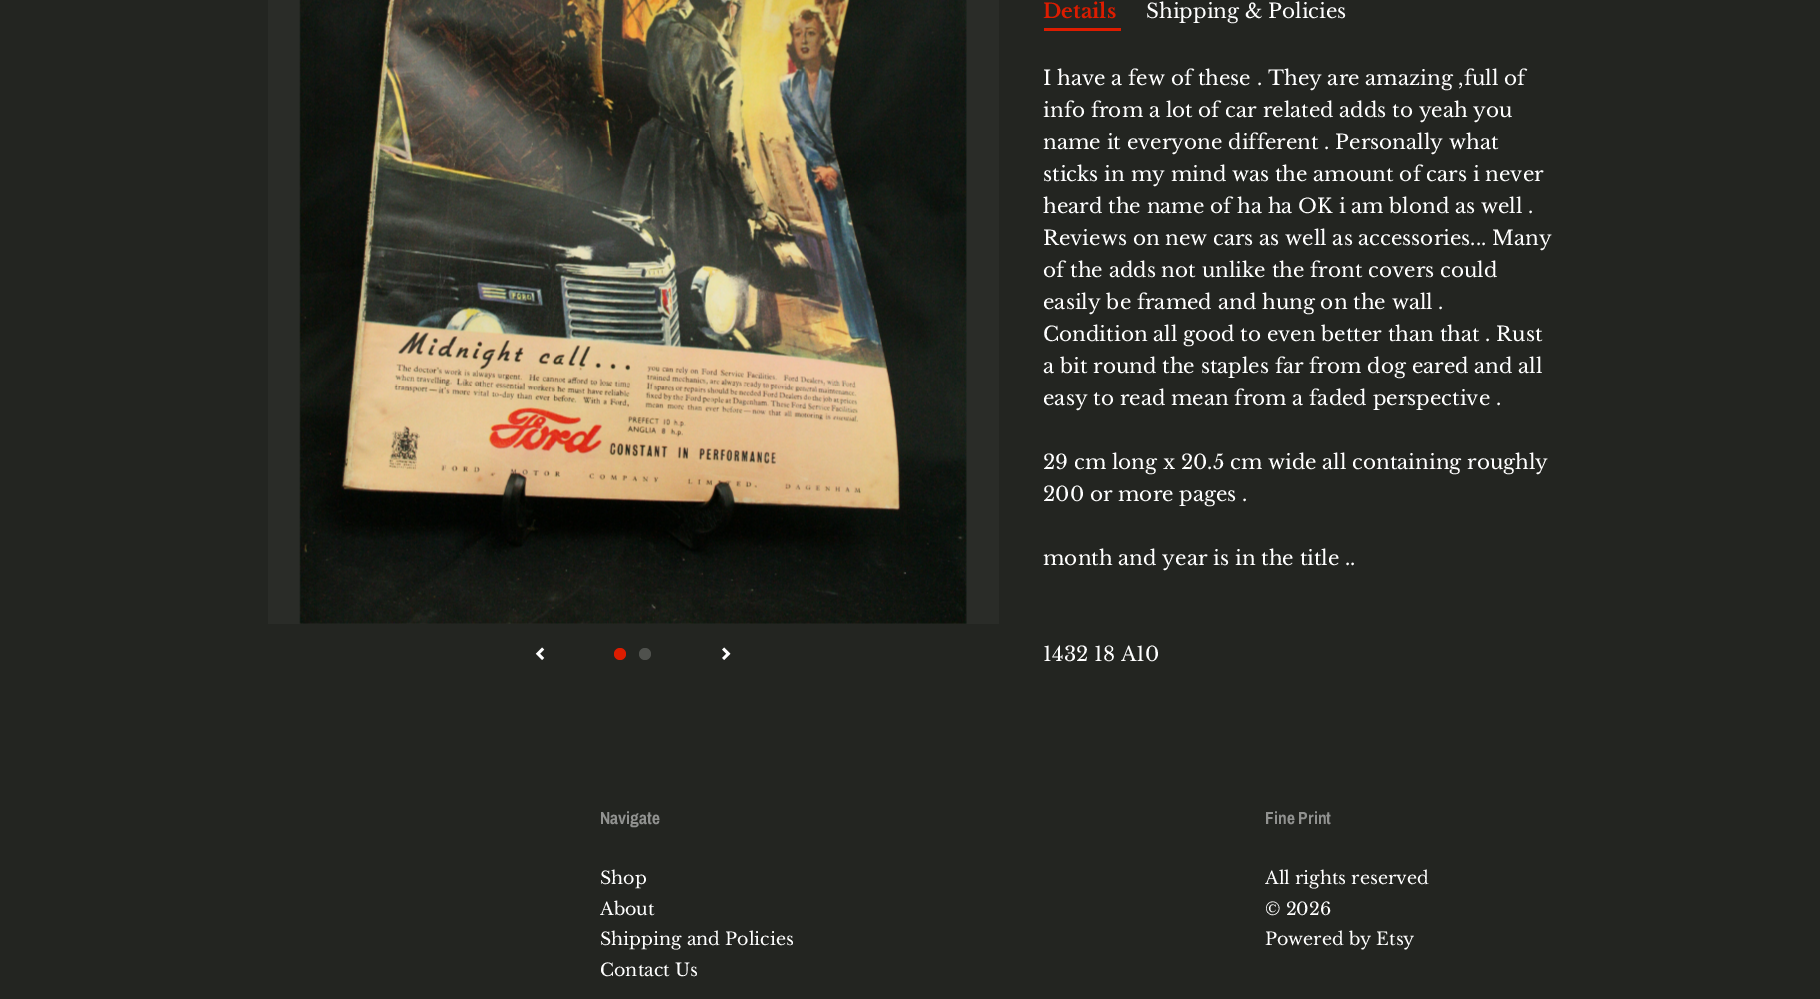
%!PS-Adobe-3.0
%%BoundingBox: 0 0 1820 999
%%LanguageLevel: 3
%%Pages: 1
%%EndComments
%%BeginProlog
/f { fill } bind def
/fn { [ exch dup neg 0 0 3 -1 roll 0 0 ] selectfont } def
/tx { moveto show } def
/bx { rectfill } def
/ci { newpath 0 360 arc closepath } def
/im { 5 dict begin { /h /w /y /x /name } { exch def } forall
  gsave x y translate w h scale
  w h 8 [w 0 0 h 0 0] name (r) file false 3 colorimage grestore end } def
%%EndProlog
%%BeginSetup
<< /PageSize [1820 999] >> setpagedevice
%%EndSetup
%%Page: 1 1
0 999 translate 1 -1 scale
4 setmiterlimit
0.137 0.145 0.129 setrgbcolor
0 0 1820 999 bx
0.165 0.173 0.157 setrgbcolor
268 0 731 624 bx
(image0.raw) 299 0 668 624 im
(image1.raw) 535 647 10 13 im
0.863 0.11 0 setrgbcolor
620 654 6 ci f
0.31 0.318 0.302 setrgbcolor
645 654 6 ci f
(image2.raw) 722 647 9 13 im
/LibreBaskerville-Bold 20 fn
0.863 0.11 0 setrgbcolor
(Details) 1043 18 tx
1044 28 77 3 bx
/LibreBaskerville-Regular 20 fn
1 setgray
(Shipping & Policies) 1146 18 tx
(I have a few of these . They are amazing ,full of) 1043 85 tx
(info from a lot of car related adds to yeah you) 1043 117 tx
(name it everyone different . Personally what) 1043 149 tx
(sticks in my mind was the amount of cars i never) 1043 181 tx
(heard the name of ha ha OK i am blond as well .) 1043 213 tx
(Reviews on new cars as well as accessories... Many) 1043 245 tx
(of the adds not unlike the front covers could) 1043 277 tx
(easily be framed and hung on the wall .) 1043 309 tx
(Condition all good to even better than that . Rust) 1043 341 tx
(a bit round the staples far from dog eared and all) 1043 373 tx
(easy to read mean from a faded perspective .) 1043 405 tx
(29 cm long x 20.5 cm wide all containing roughly) 1043 469 tx
(200 or more pages .) 1043 501 tx
(month and year is in the title ..) 1043 565 tx
(1432 18 A10) 1043 661 tx
/ArchivoNarrow-Bold 17.5 fn
0.569 0.573 0.565 setrgbcolor
(Navigate) 600 824 tx
/LibreBaskerville-Regular 17.5 fn
1 setgray
(Shop) 600 884 tx
(About) 600 915 tx
(Shipping and Policies) 600 945 tx
(Contact Us) 600 976 tx
/ArchivoNarrow-Bold 17.5 fn
0.569 0.573 0.565 setrgbcolor
(Fine Print) 1265 824 tx
/LibreBaskerville-Regular 17.5 fn
1 setgray
(All rights reserved) 1265 884 tx
(© 2026) 1265 915 tx
(Powered by Etsy) 1265 945 tx
showpage
%%EOF
